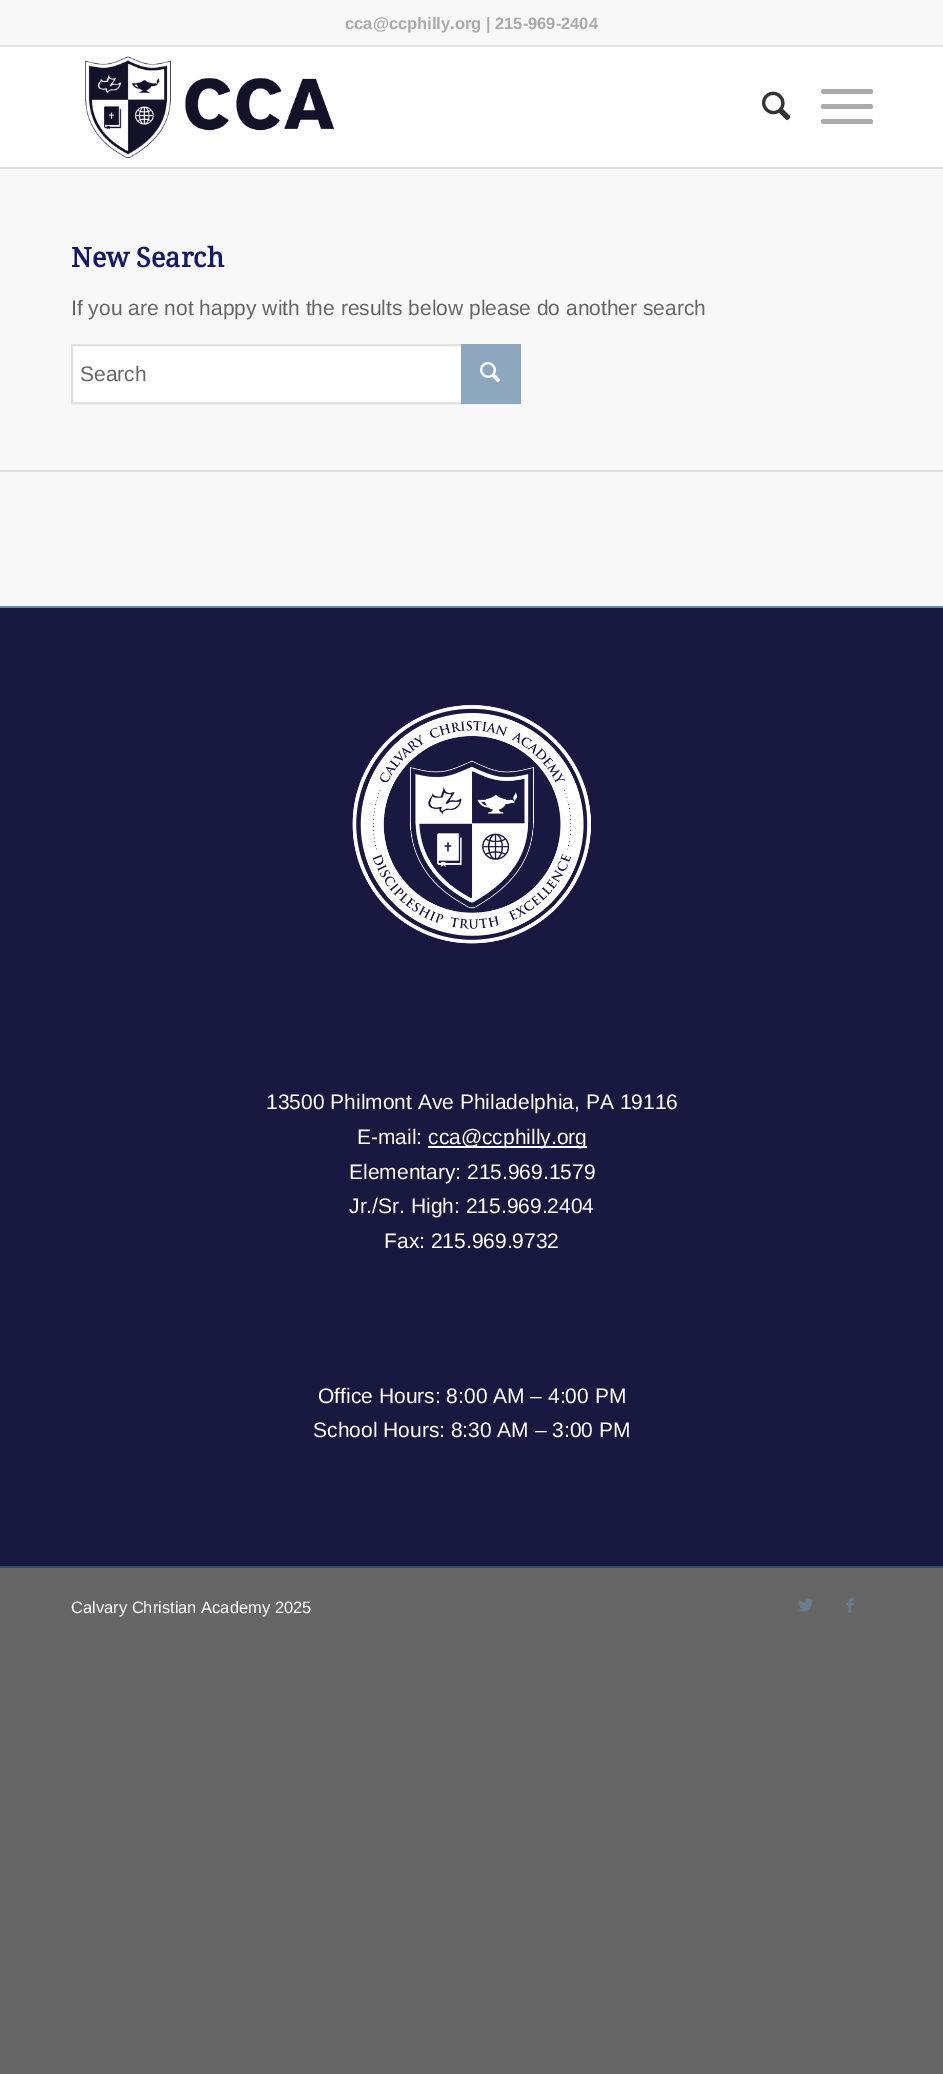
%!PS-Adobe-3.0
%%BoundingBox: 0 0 943 2074
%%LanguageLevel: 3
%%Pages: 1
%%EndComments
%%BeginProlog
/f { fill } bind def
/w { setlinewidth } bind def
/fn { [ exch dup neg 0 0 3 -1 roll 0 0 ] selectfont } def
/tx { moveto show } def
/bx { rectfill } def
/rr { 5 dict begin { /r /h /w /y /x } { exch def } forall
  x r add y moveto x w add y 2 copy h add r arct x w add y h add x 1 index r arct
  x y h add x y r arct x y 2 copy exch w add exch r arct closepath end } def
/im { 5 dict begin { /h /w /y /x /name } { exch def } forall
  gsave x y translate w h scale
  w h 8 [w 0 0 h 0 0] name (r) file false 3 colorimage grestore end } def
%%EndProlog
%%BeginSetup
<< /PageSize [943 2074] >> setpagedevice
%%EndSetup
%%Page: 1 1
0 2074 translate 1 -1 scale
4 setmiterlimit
0.4 setgray
0 0 943 2074 bx
0.973 setgray
0 0 943 45 bx
0.882 setgray
0 45 943 2 bx
/LiberationSans-Bold 16.5 fn
0.667 setgray
(cca@ccphilly.org | 215-969-2404) 345 29 tx
1 setgray
0 47 943 120 bx
0.882 setgray
0 167 943 2 bx
(image0.raw) 85 56 250 102 im
(image1.raw) 762 91 29 30 im
0.667 setgray
821 104 52 5 2.5 rr f
821 89 52 5 2.5 rr f
821 119 52 5 2.5 rr f
0.973 setgray
0 169 943 437 bx
/DroidSerif-Bold 27 fn
0.09 0.094 0.404 setrgbcolor
(New Search) 71 267 tx
/LiberationSans-Regular 21 fn
0.4 setgray
(If you are not happy with the results below please do another search) 71 315 tx
1 setgray
73 346 388 56 bx
0.882 setgray
2 w
72 345 448 58 rectstroke
0.4 setgray
(Search) 80 381 tx
0.549 0.655 0.745 setrgbcolor
461 344 60 60 bx
(image2.raw) 480 362 20 21 im
0.882 setgray
0 470 943 2 bx
0.098 0.094 0.251 setrgbcolor
0 608 943 958 bx
0.404 0.525 0.631 setrgbcolor
0 606 943 2 bx
(image3.raw) 352 705 239 239 im
1 setgray
(13500 Philmont Ave Philadelphia, PA 19116) 266 1109 tx
(E-mail:) 357 1144 tx
428 1146 159 2 bx
(cca@ccphilly.org) 428 1144 tx
(Elementary: 215.969.1579) 349 1179 tx
(Jr./Sr. High: 215.969.2404) 349 1213 tx
(Fax: 215.969.9732) 384 1248 tx
(Office Hours: 8:00 AM – 4:00 PM) 318 1403 tx
(School Hours: 8:30 AM – 3:00 PM) 313 1437 tx
0.227 0.302 0.361 setrgbcolor
0 1566 943 2 bx
/LiberationSans-Regular 16.5 fn
1 setgray
(Calvary Christian Academy 2025) 71 1613 tx
(image4.raw) 798 1599 15 13 im
(image5.raw) 846 1597 9 16 im
showpage
%%EOF
